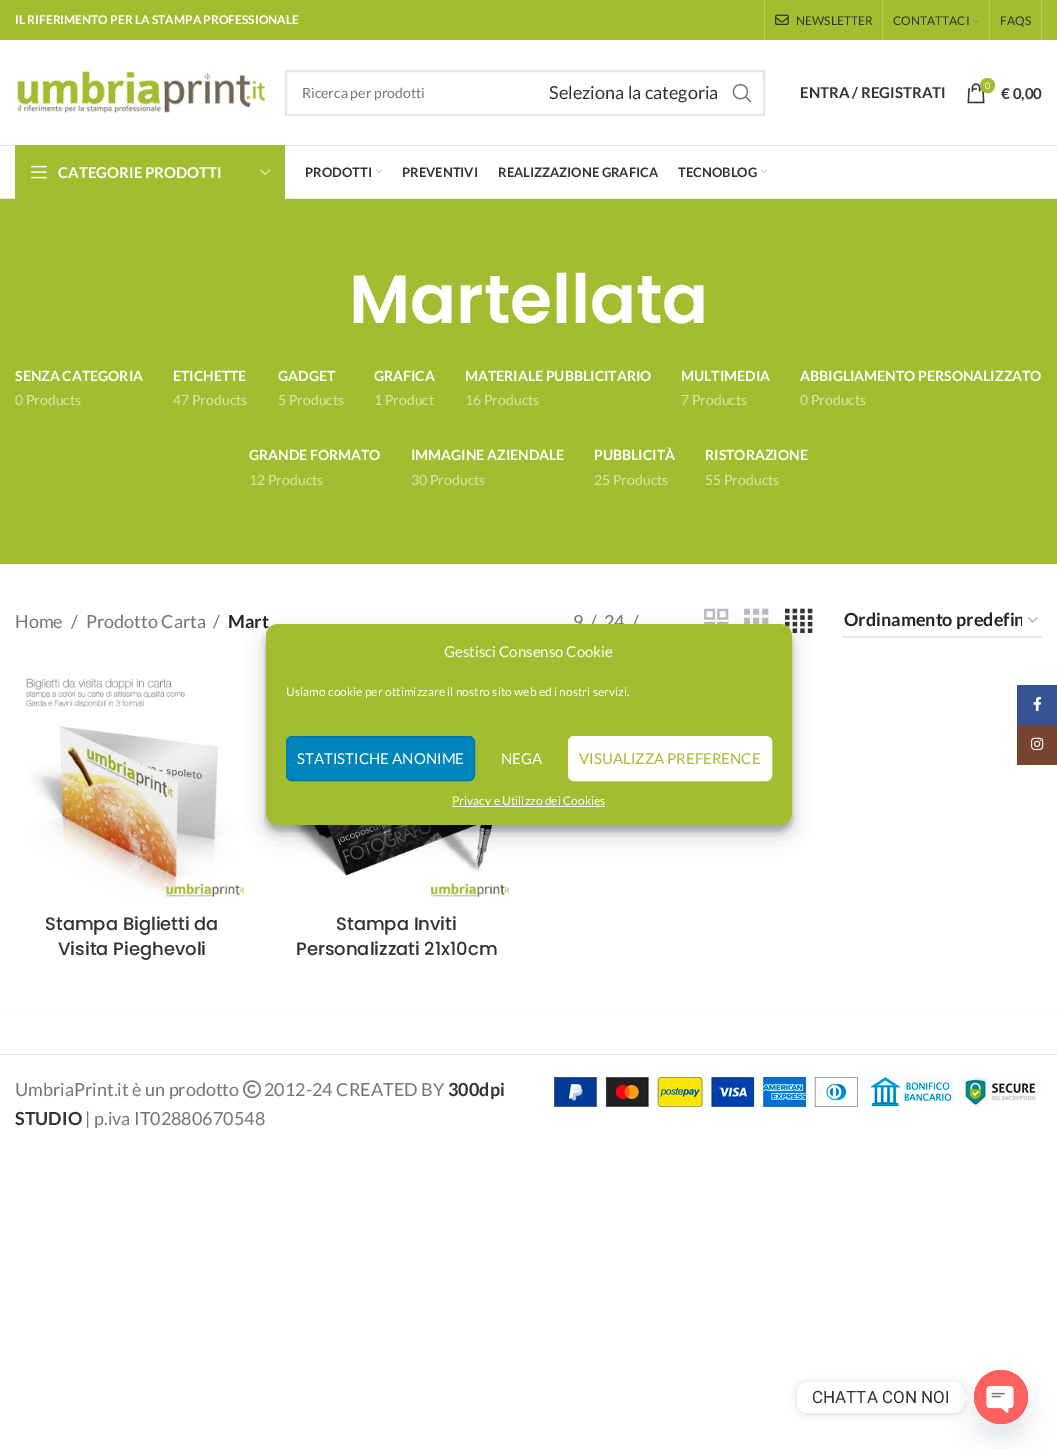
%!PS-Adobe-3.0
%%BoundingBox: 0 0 1057 1449
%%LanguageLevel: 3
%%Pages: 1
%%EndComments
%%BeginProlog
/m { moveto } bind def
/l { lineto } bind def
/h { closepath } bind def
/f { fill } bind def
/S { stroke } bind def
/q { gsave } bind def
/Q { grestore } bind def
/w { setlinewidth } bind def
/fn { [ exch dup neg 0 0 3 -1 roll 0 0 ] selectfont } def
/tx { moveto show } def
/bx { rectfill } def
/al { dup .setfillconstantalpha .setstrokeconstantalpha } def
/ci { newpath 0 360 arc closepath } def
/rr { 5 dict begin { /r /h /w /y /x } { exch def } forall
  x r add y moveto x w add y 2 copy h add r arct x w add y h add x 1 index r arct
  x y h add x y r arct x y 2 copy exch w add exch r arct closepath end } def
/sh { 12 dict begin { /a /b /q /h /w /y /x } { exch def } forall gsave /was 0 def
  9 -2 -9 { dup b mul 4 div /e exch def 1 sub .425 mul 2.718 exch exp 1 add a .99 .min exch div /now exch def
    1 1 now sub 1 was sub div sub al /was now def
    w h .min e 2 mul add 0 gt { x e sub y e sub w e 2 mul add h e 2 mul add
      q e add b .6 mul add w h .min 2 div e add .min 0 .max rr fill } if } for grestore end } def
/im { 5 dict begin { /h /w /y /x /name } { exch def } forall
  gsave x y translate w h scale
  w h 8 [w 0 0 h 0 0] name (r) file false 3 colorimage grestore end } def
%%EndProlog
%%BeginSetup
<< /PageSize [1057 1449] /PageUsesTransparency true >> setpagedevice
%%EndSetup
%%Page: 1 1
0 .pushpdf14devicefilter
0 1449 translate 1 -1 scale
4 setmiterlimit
1 setgray
0 0 1057 1449 bx
0.635 0.741 0.188 setrgbcolor
0 0 1057 40 bx
/Lato-Bold 12 fn
1 setgray
(IL RIFERIMENTO PER LA STAMPA PROFESSIONALE) 15 24 tx
0.725 0.808 0.392 setrgbcolor
764 0 1 40 bx
(image0.raw) 775 14 14 11 im
/Lato-Regular 12 fn
0.2 setgray
(NEWSLETTER) 796 25 tx
0.725 0.808 0.392 setrgbcolor
882 0 1 40 bx
0.2 setgray
(CONTATTACI) 893 25 tx
(image1.raw) 973 20 6 3 im
0.725 0.808 0.392 setrgbcolor
989 0 1 40 bx
0.2 setgray
(FAQS) 1000 25 tx
0.725 0.808 0.392 setrgbcolor
1041 0 1 40 bx
0.91 setgray
0 145 1057 1 bx
(image2.raw) 15 71 250 43 im
0.902 setgray
2 w
286 71 478 44 rectstroke
/Lato-Regular 14 fn
0.463 setgray
(Ricerca per prodotti) 302 98 tx
/Lato-Regular 18 fn
0.2 setgray
(Seleziona la categoria) 549 99 tx
(image3.raw) 732 83 20 20 im
/Lato-Bold 15 fn
(ENTRA / REGISTRATI) 800 98 tx
(image4.raw) 967 83 18 21 im
0.635 0.741 0.188 setrgbcolor
987.5 85.5 7.5 ci f
/Lato-Regular 9 fn
1 setgray
(0) 985 89 tx
/Lato-Bold 15 fn
0.2 setgray
(€ 0,00) 1001 99 tx
0.91 setgray
0 198 1057 1 bx
0.635 0.741 0.188 setrgbcolor
15 145 270 54 bx
(image5.raw) 31 165 16 14 im
1 setgray
(CATEGORIE PRODOTTI) 58 178 tx
(image6.raw) 260 169 11 6 im
/Lato-Bold 13 fn
0.2 setgray
(PRODOTTI) 305 177 tx
(image7.raw) 376 169 6 4 im
(PREVENTIVI) 402 177 tx
(REALIZZAZIONE GRAFICA) 498 177 tx
(TECNOBLOG) 678 177 tx
(image7.raw) 761 169 6 4 im
0.635 0.741 0.188 setrgbcolor
0 199 1057 365 bx
/Poppins-SemiBold 68 fn
1 setgray
(Martellata) 349 323 tx
/Lato-Bold 14 fn
(SENZA CATEGORIA) 15 381 tx
/Lato-Regular 14 fn
0.855 0.898 0.675 setrgbcolor
(0 Products) 15 405 tx
/Lato-Bold 14 fn
1 setgray
(ETICHETTE) 173 381 tx
/Lato-Regular 14 fn
0.855 0.898 0.675 setrgbcolor
(47 Products) 173 405 tx
/Lato-Bold 14 fn
1 setgray
(GADGET) 278 381 tx
/Lato-Regular 14 fn
0.855 0.898 0.675 setrgbcolor
(5 Products) 278 405 tx
/Lato-Bold 14 fn
1 setgray
(GRAFICA) 374 381 tx
/Lato-Regular 14 fn
0.855 0.898 0.675 setrgbcolor
(1 Product) 374 405 tx
/Lato-Bold 14 fn
1 setgray
(MATERIALE PUBBLICITARIO) 465 381 tx
/Lato-Regular 14 fn
0.855 0.898 0.675 setrgbcolor
(16 Products) 465 405 tx
/Lato-Bold 14 fn
1 setgray
(MULTIMEDIA) 681 381 tx
/Lato-Regular 14 fn
0.855 0.898 0.675 setrgbcolor
(7 Products) 681 405 tx
/Lato-Bold 14 fn
1 setgray
(ABBIGLIAMENTO PERSONALIZZATO) 800 381 tx
/Lato-Regular 14 fn
0.855 0.898 0.675 setrgbcolor
(0 Products) 800 405 tx
/Lato-Bold 14 fn
1 setgray
(GRANDE FORMATO) 249 460 tx
/Lato-Regular 14 fn
0.855 0.898 0.675 setrgbcolor
(12 Products) 249 485 tx
/Lato-Bold 14 fn
1 setgray
(IMMAGINE AZIENDALE) 411 460 tx
/Lato-Regular 14 fn
0.855 0.898 0.675 setrgbcolor
(30 Products) 411 485 tx
/Lato-Bold 14 fn
1 setgray
(PUBBLICITÀ) 594 460 tx
/Lato-Regular 14 fn
0.855 0.898 0.675 setrgbcolor
(25 Products) 594 485 tx
/Lato-Bold 14 fn
1 setgray
(RISTORAZIONE) 705 460 tx
/Lato-Regular 14 fn
0.855 0.898 0.675 setrgbcolor
(55 Products) 705 485 tx
/Lato-Regular 18 fn
0.463 setgray
(Home) 15 628 tx
(/) 71 628 tx
(Prodotto Carta) 86 628 tx
(/) 213 628 tx
/Lato-Bold 18 fn
0.141 setgray
(Mart) 228 628 tx
/Lato-Regular 18 fn
0.463 setgray
(9) 573 628 tx
(/) 590 628 tx
(24) 604 628 tx
(/) 632 628 tx
(image8.raw) 704 608 25 16 im
(image9.raw) 744 608 25 16 im
(image10.raw) 785 608 28 25 im
0.733 setgray
1.4 w
1028.5 617.5 m 1032.5 622 l 1037 617.5 l S
0.902 setgray
842 636 200 2 bx
q
844 609 178 22 rectclip
/Lato-Bold 18 fn
0.141 setgray
(Ordinamento predefin) 844 626 tx
Q
(image11.raw) 26 678 219 221 im
/Poppins-Medium 18 fn
0.2 setgray
(Stampa Biglietti da) 45 930 tx
(Visita Pieghevoli) 58 955 tx
(image12.raw) 279 825 231 73 im
(Stampa Inviti) 336 930 tx
(Personalizzati 21x10cm) 296 955 tx
0.976 setgray
0 1014 1057 1 bx
0.894 setgray
0 1054 1057 1 bx
/Lato-Regular 18 fn
0.463 setgray
(UmbriaPrint.it è un prodotto) 15 1096 tx
(image13.raw) 243 1080 18 19 im
(2012-24 CREATED BY) 264 1096 tx
/Lato-Bold 18 fn
0.2 setgray
(300dpi) 448 1096 tx
(STUDIO) 15 1125 tx
/Lato-Regular 18 fn
0.463 setgray
(| p.iva IT02880670548) 85 1125 tx
(image14.raw) 554 1077 488 30 im
0 setgray
266 630 526 201 12 3 0.23 sh
266 634 526 201 12 10 0.19 sh
0.635 0.741 0.188 setrgbcolor
266 624 526 201 12 rr f
/Lato-Regular 15 fn
1 setgray
(Gestisci Consenso Cookie) 444 657 tx
/Lato-Regular 12 fn
(Usiamo cookie per ottimizzare il nostro sito web ed i nostri servizi.) 286 696 tx
0 0.522 0.729 setrgbcolor
286.5 736.5 188 44 5.5 rr q f Q
0 0.451 0.667 setrgbcolor
1 w
S
/Lato-Regular 15 fn
1 setgray
(STATISTICHE ANONIME) 297 764 tx
(NEGA) 501 764 tx
568.5 736.5 203 44 5.5 rr q f Q
S
0.635 0.741 0.188 setrgbcolor
(VISUALIZZA PREFERENCE) 579 764 tx
1 setgray
452 806 153 1 bx
/Lato-Regular 12 fn
(Privacy e Utilizzo dei Cookies) 452 805 tx
0.212 0.329 0.576 setrgbcolor
1017 685 40 40 bx
(image15.raw) 1033 696 9 15 im
0.467 0.267 0.188 setrgbcolor
1017 725 40 40 bx
(image16.raw) 1031 737 13 13 im
0 setgray
797 1383 167 31 10 4 0.15 sh
1 setgray
797 1382 167 31 10 rr f
/Roboto-Regular 17 fn
0.2 setgray
(CHATTA CON NOI) 812 1403 tx
1 setgray
964 1402.5 m 964 1392.5 l 969 1397.5 l h f
0.286 0.408 0.494 setrgbcolor
974 1386 54 54 27 12 0.16 sh
(image17.raw) 974 1370 54 54 im
.poppdf14devicefilter showpage
%%EOF
